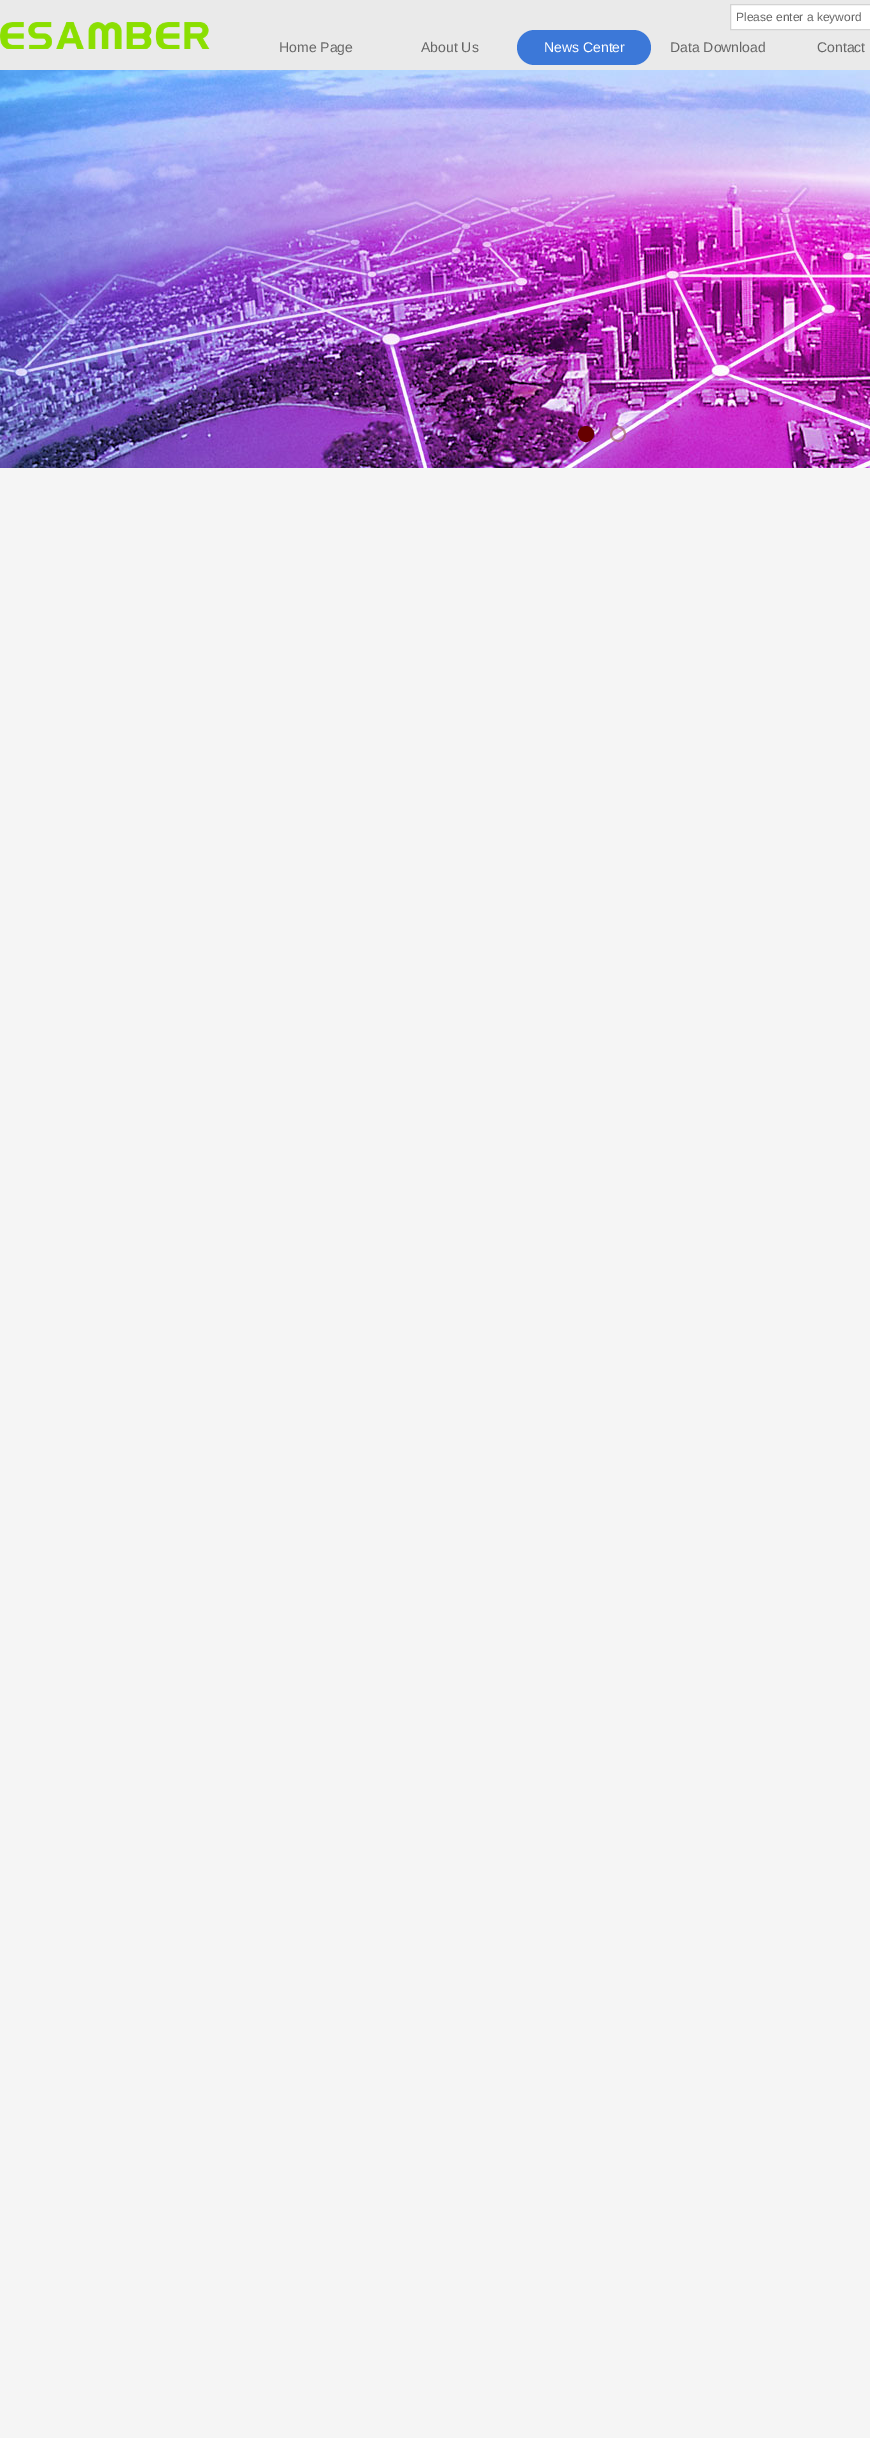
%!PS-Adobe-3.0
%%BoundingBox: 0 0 870 2438
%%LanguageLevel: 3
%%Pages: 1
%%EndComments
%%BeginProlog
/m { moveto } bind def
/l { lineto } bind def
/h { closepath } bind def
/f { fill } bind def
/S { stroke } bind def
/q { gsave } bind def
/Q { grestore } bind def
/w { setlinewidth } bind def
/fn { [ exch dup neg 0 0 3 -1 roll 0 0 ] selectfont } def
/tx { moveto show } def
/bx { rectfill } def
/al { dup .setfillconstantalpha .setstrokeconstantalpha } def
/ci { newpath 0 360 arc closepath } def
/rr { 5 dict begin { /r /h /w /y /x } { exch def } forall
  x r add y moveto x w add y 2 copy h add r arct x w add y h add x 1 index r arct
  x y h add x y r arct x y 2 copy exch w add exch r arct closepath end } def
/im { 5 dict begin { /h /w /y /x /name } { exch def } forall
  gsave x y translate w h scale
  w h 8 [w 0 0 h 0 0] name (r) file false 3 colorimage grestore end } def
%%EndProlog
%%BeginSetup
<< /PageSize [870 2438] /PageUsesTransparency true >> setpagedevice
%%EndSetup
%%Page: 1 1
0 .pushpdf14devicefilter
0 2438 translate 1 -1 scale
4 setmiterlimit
0.961 setgray
0 0 870 2438 bx
0.918 setgray
0 0 870 70 bx
(image0.raw) 0 22 210 27 im
1 setgray
730.5 4.5 m 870.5 4.5 l 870.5 29.5 l 730.5 29.5 l h q f Q
0.827 setgray
S
/LiberationSans-Regular 12 fn
0.4 setgray
(Please enter a keyword) 736 21 tx
/LiberationSans-Regular 14 fn
(Home Page) 279 52 tx
(About Us) 421 52 tx
0.235 0.471 0.847 setrgbcolor
517 30 134 35 17.5 rr f
1 setgray
(News Center) 544 52 tx
0.4 setgray
(Data Download) 670 52 tx
(Contact) 817 52 tx
(image1.raw) 0 70 870 398 im
0.4 0 0 setrgbcolor
586 434 7 ci q f Q
2 w
S
0.4 al
1 setgray
618 434 8 ci f
0.4 0 0 setrgbcolor
618 434 7 ci S
.poppdf14devicefilter showpage
%%EOF
